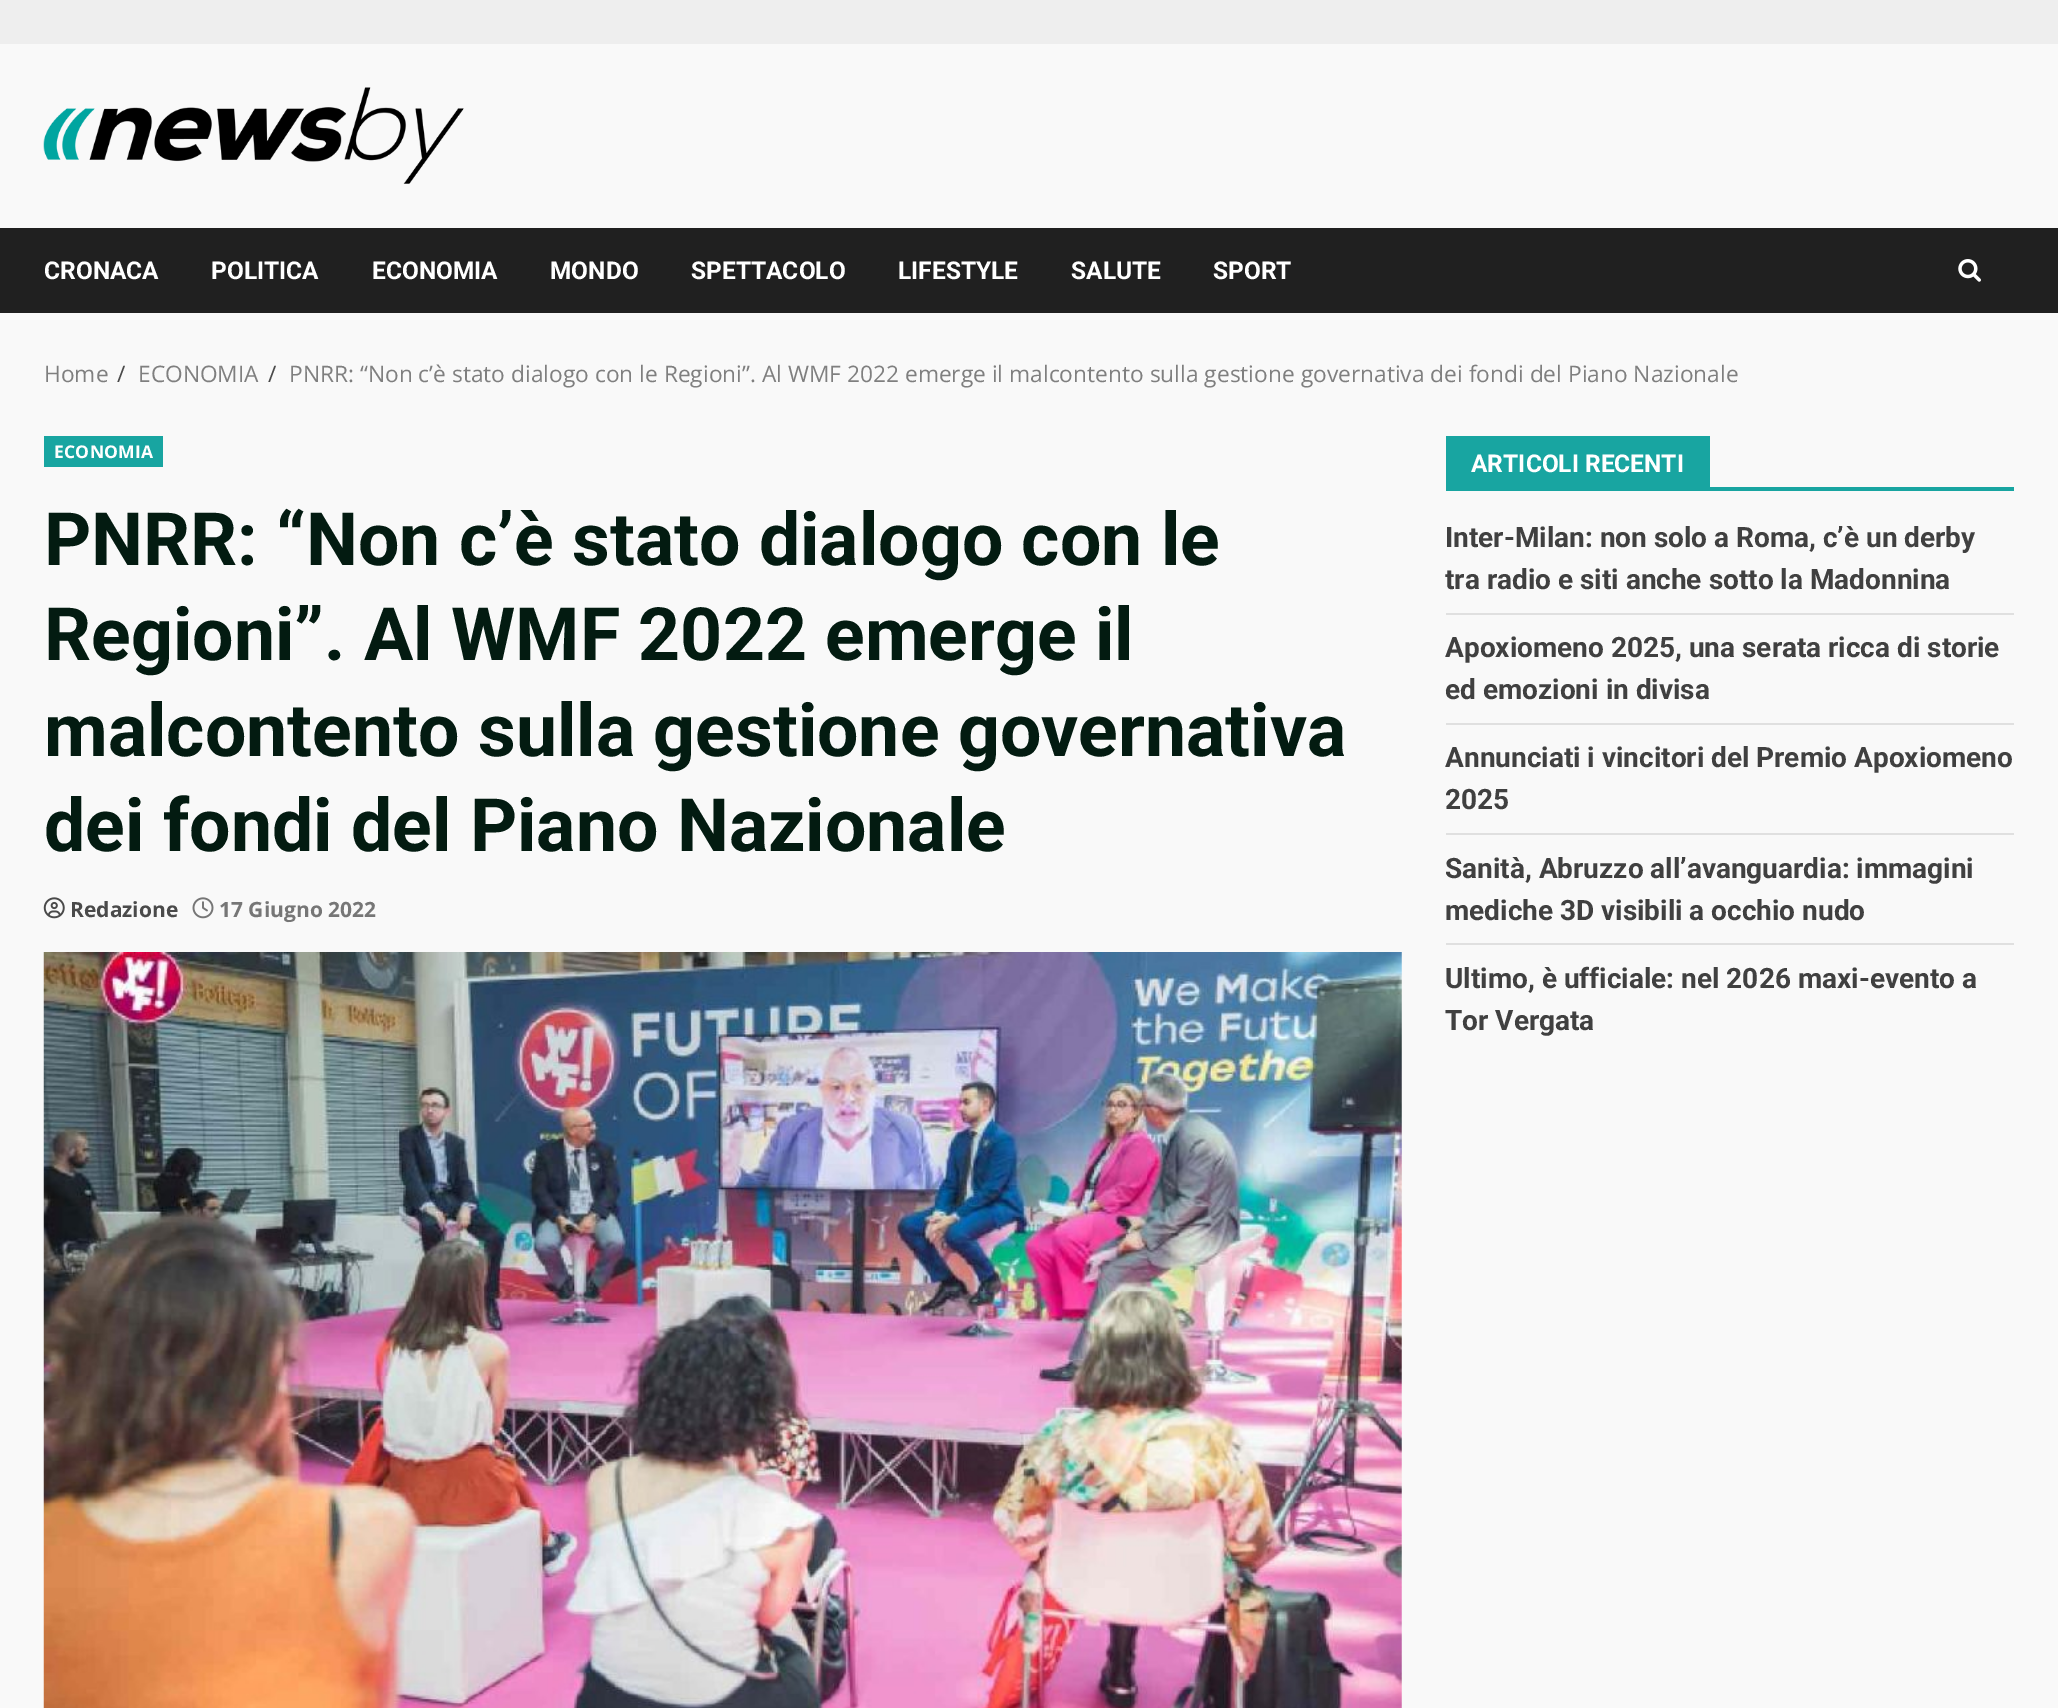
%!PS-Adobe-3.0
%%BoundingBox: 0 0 2058 1708
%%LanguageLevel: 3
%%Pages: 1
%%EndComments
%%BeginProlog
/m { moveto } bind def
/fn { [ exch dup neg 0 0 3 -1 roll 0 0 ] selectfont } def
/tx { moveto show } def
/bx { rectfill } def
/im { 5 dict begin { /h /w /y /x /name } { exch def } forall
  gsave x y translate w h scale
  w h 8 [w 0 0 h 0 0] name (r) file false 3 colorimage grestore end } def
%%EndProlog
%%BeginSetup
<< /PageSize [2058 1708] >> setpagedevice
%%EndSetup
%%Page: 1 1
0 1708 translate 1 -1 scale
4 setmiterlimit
0.933 setgray
0 0 2058 1708 bx
0.976 setgray
0 44 2058 1664 bx
(image0.raw) 43 87 421 97 im
0.125 setgray
0 228 2058 85 bx
/Roboto-Bold 24.5 fn
1 setgray
(CRONACA) 44 279 tx
(POLITICA) 211 279 tx
(ECONOMIA) 372 279 tx
(MONDO) 550 279 tx
(SPETTACOLO) 691 279 tx
(LIFESTYLE) 898 279 tx
(SALUTE) 1071 279 tx
(SPORT) 1213 279 tx
(image1.raw) 1958 259 23 23 im
/OpenSans-Regular 22.75 fn
0.498 setgray
(Home) 44 382 tx
0.29 setgray
(/) 117 382 tx
0.498 setgray
(ECONOMIA) 138 382 tx
0.29 setgray
(/) 268 382 tx
0.498 setgray
(PNRR: “Non c’è stato dialogo con le Regioni”. Al WMF 2022 emerge il malcontento sulla gestione governativa dei fondi del Piano Nazionale) 289 382 tx
0.094 0.647 0.631 setrgbcolor
44 436 119 31 bx
/OpenSans-Bold 17.5 fn
1 setgray
54 458 m 0.25 0 (ECONOMIA) ashow
/Roboto-Bold 73.5 fn
0.012 0.106 0.067 setrgbcolor
(PNRR: “Non c’è stato dialogo con le) 44 565 tx
(Regioni”. Al WMF 2022 emerge il) 44 660 tx
(malcontento sulla gestione governativa) 44 756 tx
(dei fondi del Piano Nazionale) 44 851 tx
(image2.raw) 43 897 22 22 im
/OpenSans-Bold 21 fn
0.29 setgray
(Redazione) 70 917 tx
(image3.raw) 192 897 22 22 im
0.463 setgray
(17 Giugno 2022) 219 917 tx
(image4.raw) 43 952 1359 756 im
0.094 0.647 0.631 setrgbcolor
1446 487 568 4 bx
1446 436 264 51 bx
/Roboto-Bold 24.5 fn
1 setgray
(ARTICOLI RECENTI) 1471 472 tx
0.878 setgray
1446 613 568 2 bx
/Roboto-Bold 28 fn
0.251 setgray
(Inter-Milan: non solo a Roma, c’è un derby) 1445 547 tx
(tra radio e siti anche sotto la Madonnina) 1445 589 tx
0.878 setgray
1446 723 568 2 bx
0.251 setgray
(Apoxiomeno 2025, una serata ricca di storie) 1445 657 tx
(ed emozioni in divisa) 1445 699 tx
0.878 setgray
1446 833 568 2 bx
0.251 setgray
(Annunciati i vincitori del Premio Apoxiomeno) 1445 767 tx
(2025) 1445 809 tx
0.878 setgray
1446 943 568 2 bx
0.251 setgray
(Sanità, Abruzzo all’avanguardia: immagini) 1445 878 tx
(mediche 3D visibili a occhio nudo) 1445 920 tx
(Ultimo, è ufficiale: nel 2026 maxi-evento a) 1445 988 tx
(Tor Vergata) 1445 1030 tx
showpage
%%EOF
